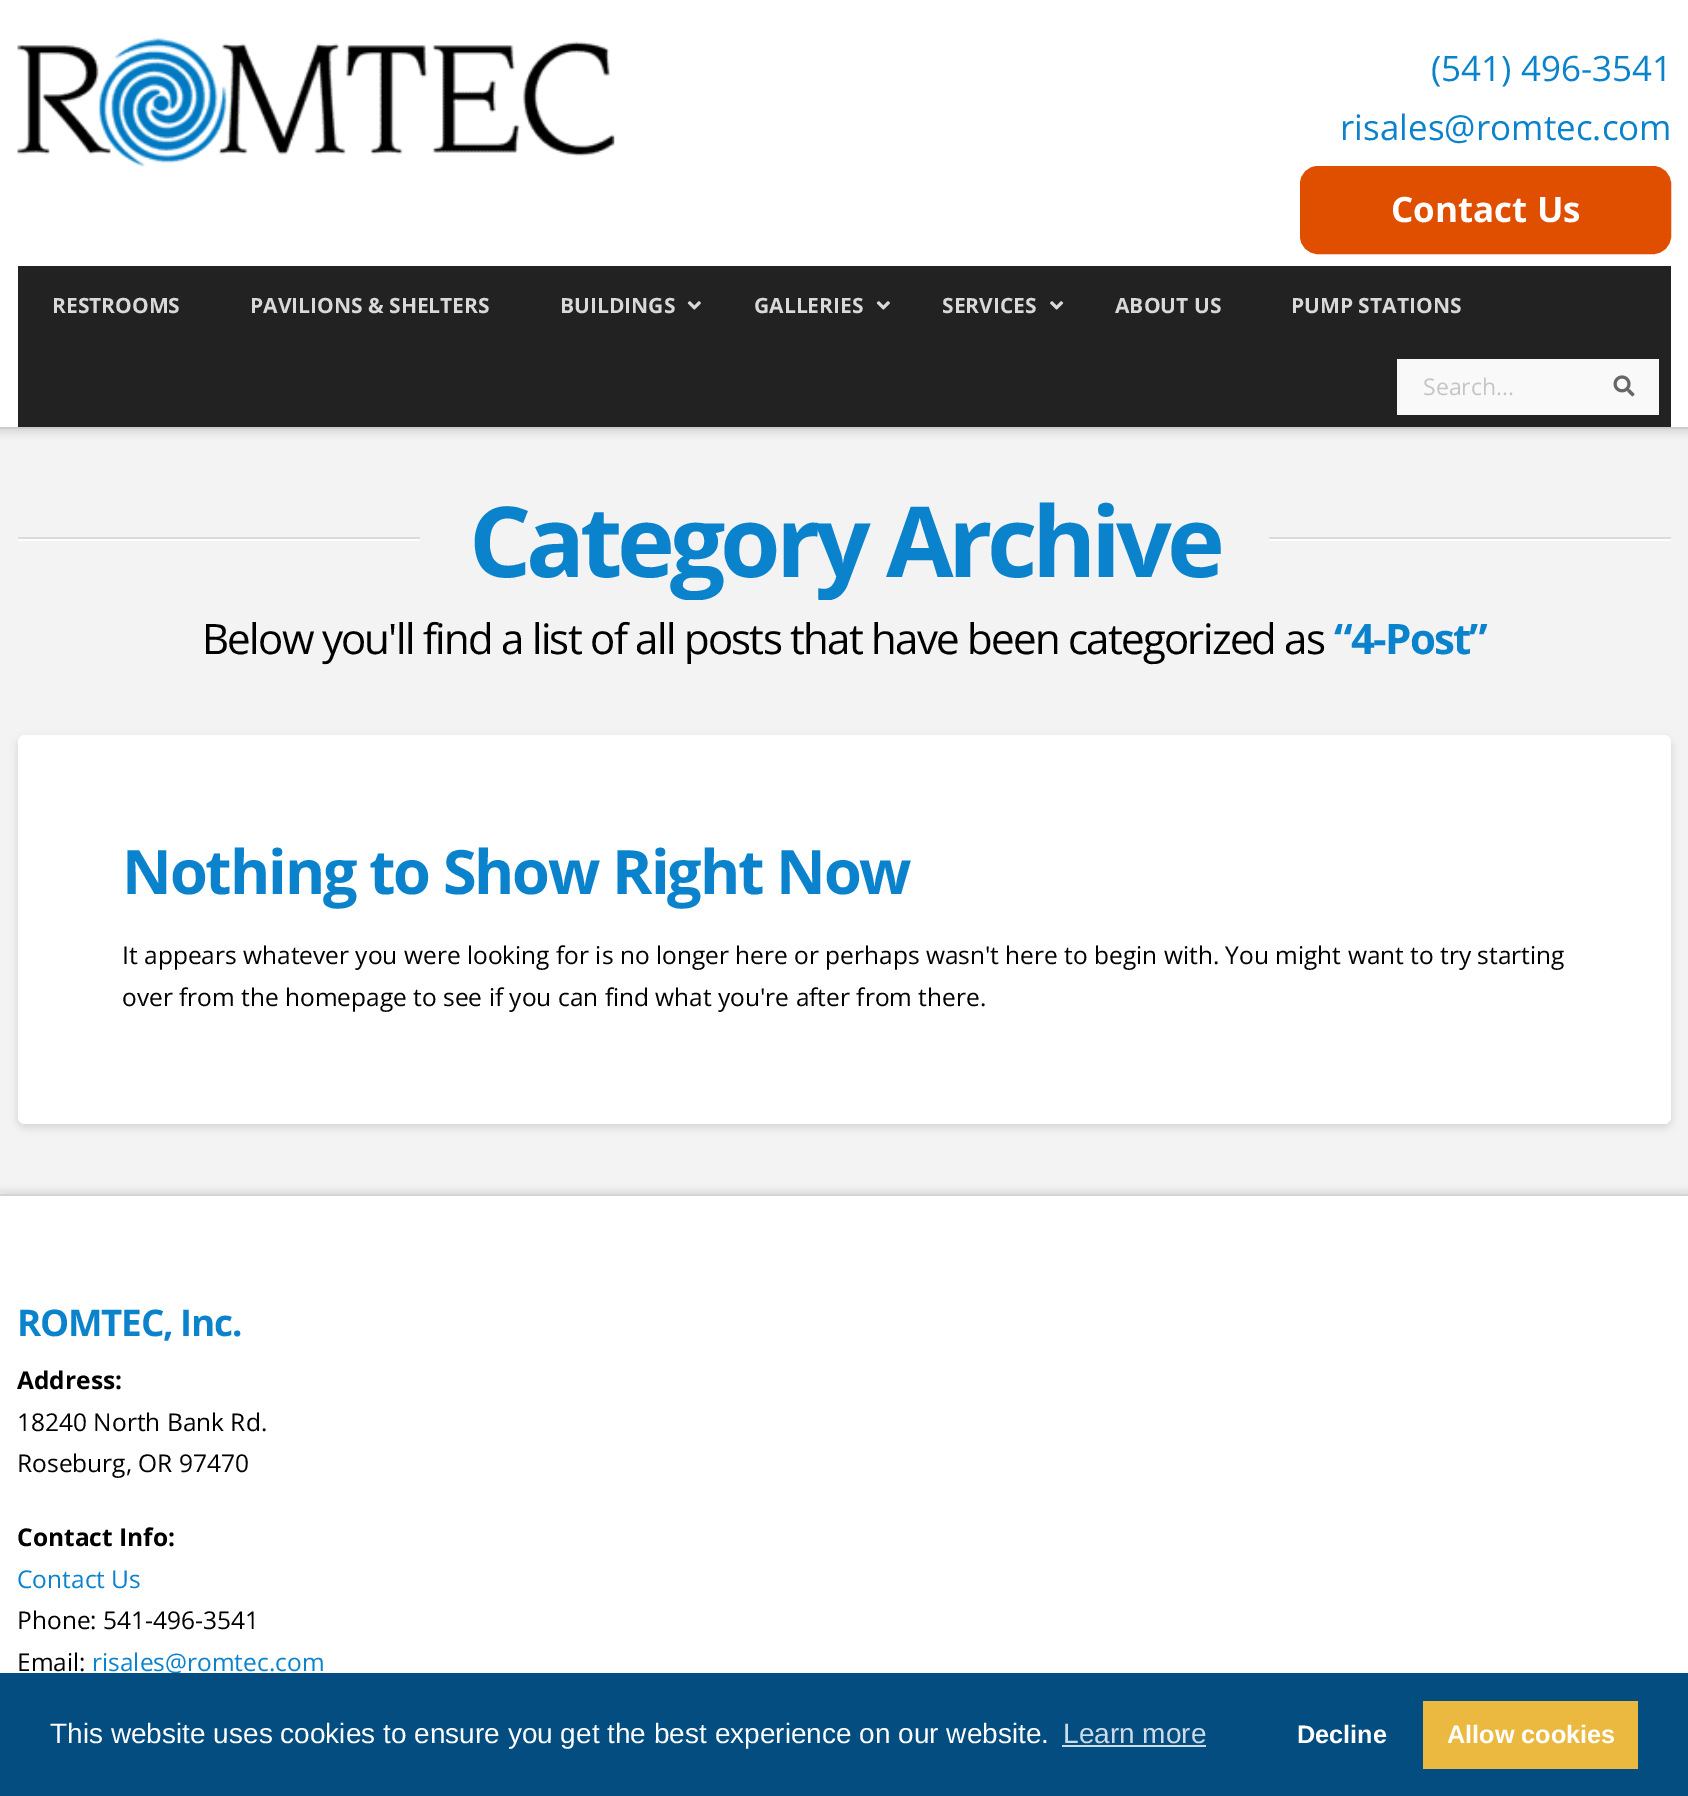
%!PS-Adobe-3.0
%%BoundingBox: 0 0 1688 1796
%%LanguageLevel: 3
%%Pages: 1
%%EndComments
%%BeginProlog
/m { moveto } bind def
/f { fill } bind def
/S { stroke } bind def
/q { gsave } bind def
/Q { grestore } bind def
/w { setlinewidth } bind def
/fn { [ exch dup neg 0 0 3 -1 roll 0 0 ] selectfont } def
/tx { moveto show } def
/bx { rectfill } def
/al { dup .setfillconstantalpha .setstrokeconstantalpha } def
/rr { 5 dict begin { /r /h /w /y /x } { exch def } forall
  x r add y moveto x w add y 2 copy h add r arct x w add y h add x 1 index r arct
  x y h add x y r arct x y 2 copy exch w add exch r arct closepath end } def
/sh { 12 dict begin { /a /b /q /h /w /y /x } { exch def } forall gsave /was 0 def
  9 -2 -9 { dup b mul 4 div /e exch def 1 sub .425 mul 2.718 exch exp 1 add a .99 .min exch div /now exch def
    1 1 now sub 1 was sub div sub al /was now def
    w h .min e 2 mul add 0 gt { x e sub y e sub w e 2 mul add h e 2 mul add
      q e add b .6 mul add w h .min 2 div e add .min 0 .max rr fill } if } for grestore end } def
/im { 5 dict begin { /h /w /y /x /name } { exch def } forall
  gsave x y translate w h scale
  w h 8 [w 0 0 h 0 0] name (r) file false 3 colorimage grestore end } def
%%EndProlog
%%BeginSetup
<< /PageSize [1688 1796] /PageUsesTransparency true >> setpagedevice
%%EndSetup
%%Page: 1 1
0 .pushpdf14devicefilter
0 1796 translate 1 -1 scale
4 setmiterlimit
0.953 setgray
0 0 1688 1796 bx
0 setgray
0 4 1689 428 0 4.5 0.13 sh
1 setgray
0 0 1688 427 bx
0.8 setgray
0 427 1688 2 bx
(image0.raw) 17 38 598 129 im
/OpenSans-Regular 35 fn
0.043 0.51 0.8 setrgbcolor
(\(541\) 496-3541) 1431 81 tx
(risales@romtec.com) 1340 140 tx
0.878 0.306 0 setrgbcolor
1302 168 367 84 16 rr q f Q
4 w
S
/OpenSans-Bold 35 fn
1 setgray
(Contact Us) 1391 222 tx
0.133 setgray
18 266 1653 161 bx
/OpenSans-Bold 21 fn
0.851 setgray
(RESTROOMS) 52 313 tx
(PAVILIONS & SHELTERS) 250 313 tx
(BUILDINGS) 560 313 tx
(image1.raw) 687 301 14 9 im
(GALLERIES) 754 313 tx
(image1.raw) 876 301 14 9 im
(SERVICES) 942 313 tx
(image2.raw) 1050 301 14 9 im
(ABOUT US) 1115 313 tx
(PUMP STATIONS) 1291 313 tx
0.976 setgray
1397 359 262 56 bx
/OpenSans-Regular 23 fn
0.773 setgray
(Search...) 1423 395 tx
(image3.raw) 1613 375 22 22 im
0.992 setgray
18 539 402 2 bx
0.859 setgray
18 537 402 2 bx
q
18 488 1653 112 rectclip
/OpenSans-Bold 98 fn
0.043 0.51 0.8 setrgbcolor
469 577 m -5.25 0 (Category Archive) ashow
Q
0.992 setgray
1269 539 402 2 bx
0.859 setgray
1269 537 402 2 bx
/OpenSans-Regular 42 fn
0 setgray
202 654 m -1.75 0 (Below you'll find a list of all posts that have been categorized as) ashow
/OpenSans-Bold 42 fn
0.043 0.51 0.8 setrgbcolor
1334 654 m -1.75 0 (“4-Post”) ashow
0 setgray
18 739 1653 388 7 4.5 0.13 sh
1 setgray
18 735 1653 389 7 rr f
/OpenSans-Bold 61.25 fn
0.043 0.51 0.8 setrgbcolor
122 894 m -2.15 0 (Nothing to Show Right Now) ashow
/OpenSans-Regular 24.5 fn
0 setgray
(It appears whatever you were looking for is no longer here or perhaps wasn't here to begin with. You might want to try starting) 122 964 tx
(over from the homepage to see if you can find what you're after from there.) 122 1006 tx
0 1190 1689 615 0 3 0.07 sh
1 setgray
0 1196 1688 477 bx
0.831 setgray
0 1194 1688 2 bx
/OpenSans-Bold 36.75 fn
0.043 0.51 0.8 setrgbcolor
17 1336 m -1.25 0 (ROMTEC, Inc.) ashow
/OpenSans-Bold 24.5 fn
0 setgray
(Address:) 17 1389 tx
/OpenSans-Regular 24.5 fn
(18240 North Bank Rd.) 17 1431 tx
(Roseburg, OR 97470) 17 1472 tx
/OpenSans-Bold 24.5 fn
(Contact Info:) 17 1546 tx
/OpenSans-Regular 24.5 fn
0.043 0.51 0.8 setrgbcolor
(Contact Us) 17 1588 tx
0 setgray
(Phone: 541-496-3541) 17 1629 tx
(Email:) 17 1671 tx
0.043 0.51 0.8 setrgbcolor
(risales@romtec.com) 92 1671 tx
0.016 0.302 0.502 setrgbcolor
0 1673 1688 123 bx
/LiberationSans-Regular 28 fn
1 setgray
(This website uses cookies to ensure you get the best experience on our website.) 50 1743 tx
0.804 0.859 0.902 setrgbcolor
(Learn more) 1063 1743 tx
1062 1745 144 2 bx
/LiberationSans-Bold 25.25 fn
1 setgray
(Decline) 1297 1743 tx
0.925 0.725 0.251 setrgbcolor
1423 1701 215 68 bx
1 setgray
(Allow cookies) 1447 1743 tx
.poppdf14devicefilter showpage
%%EOF
